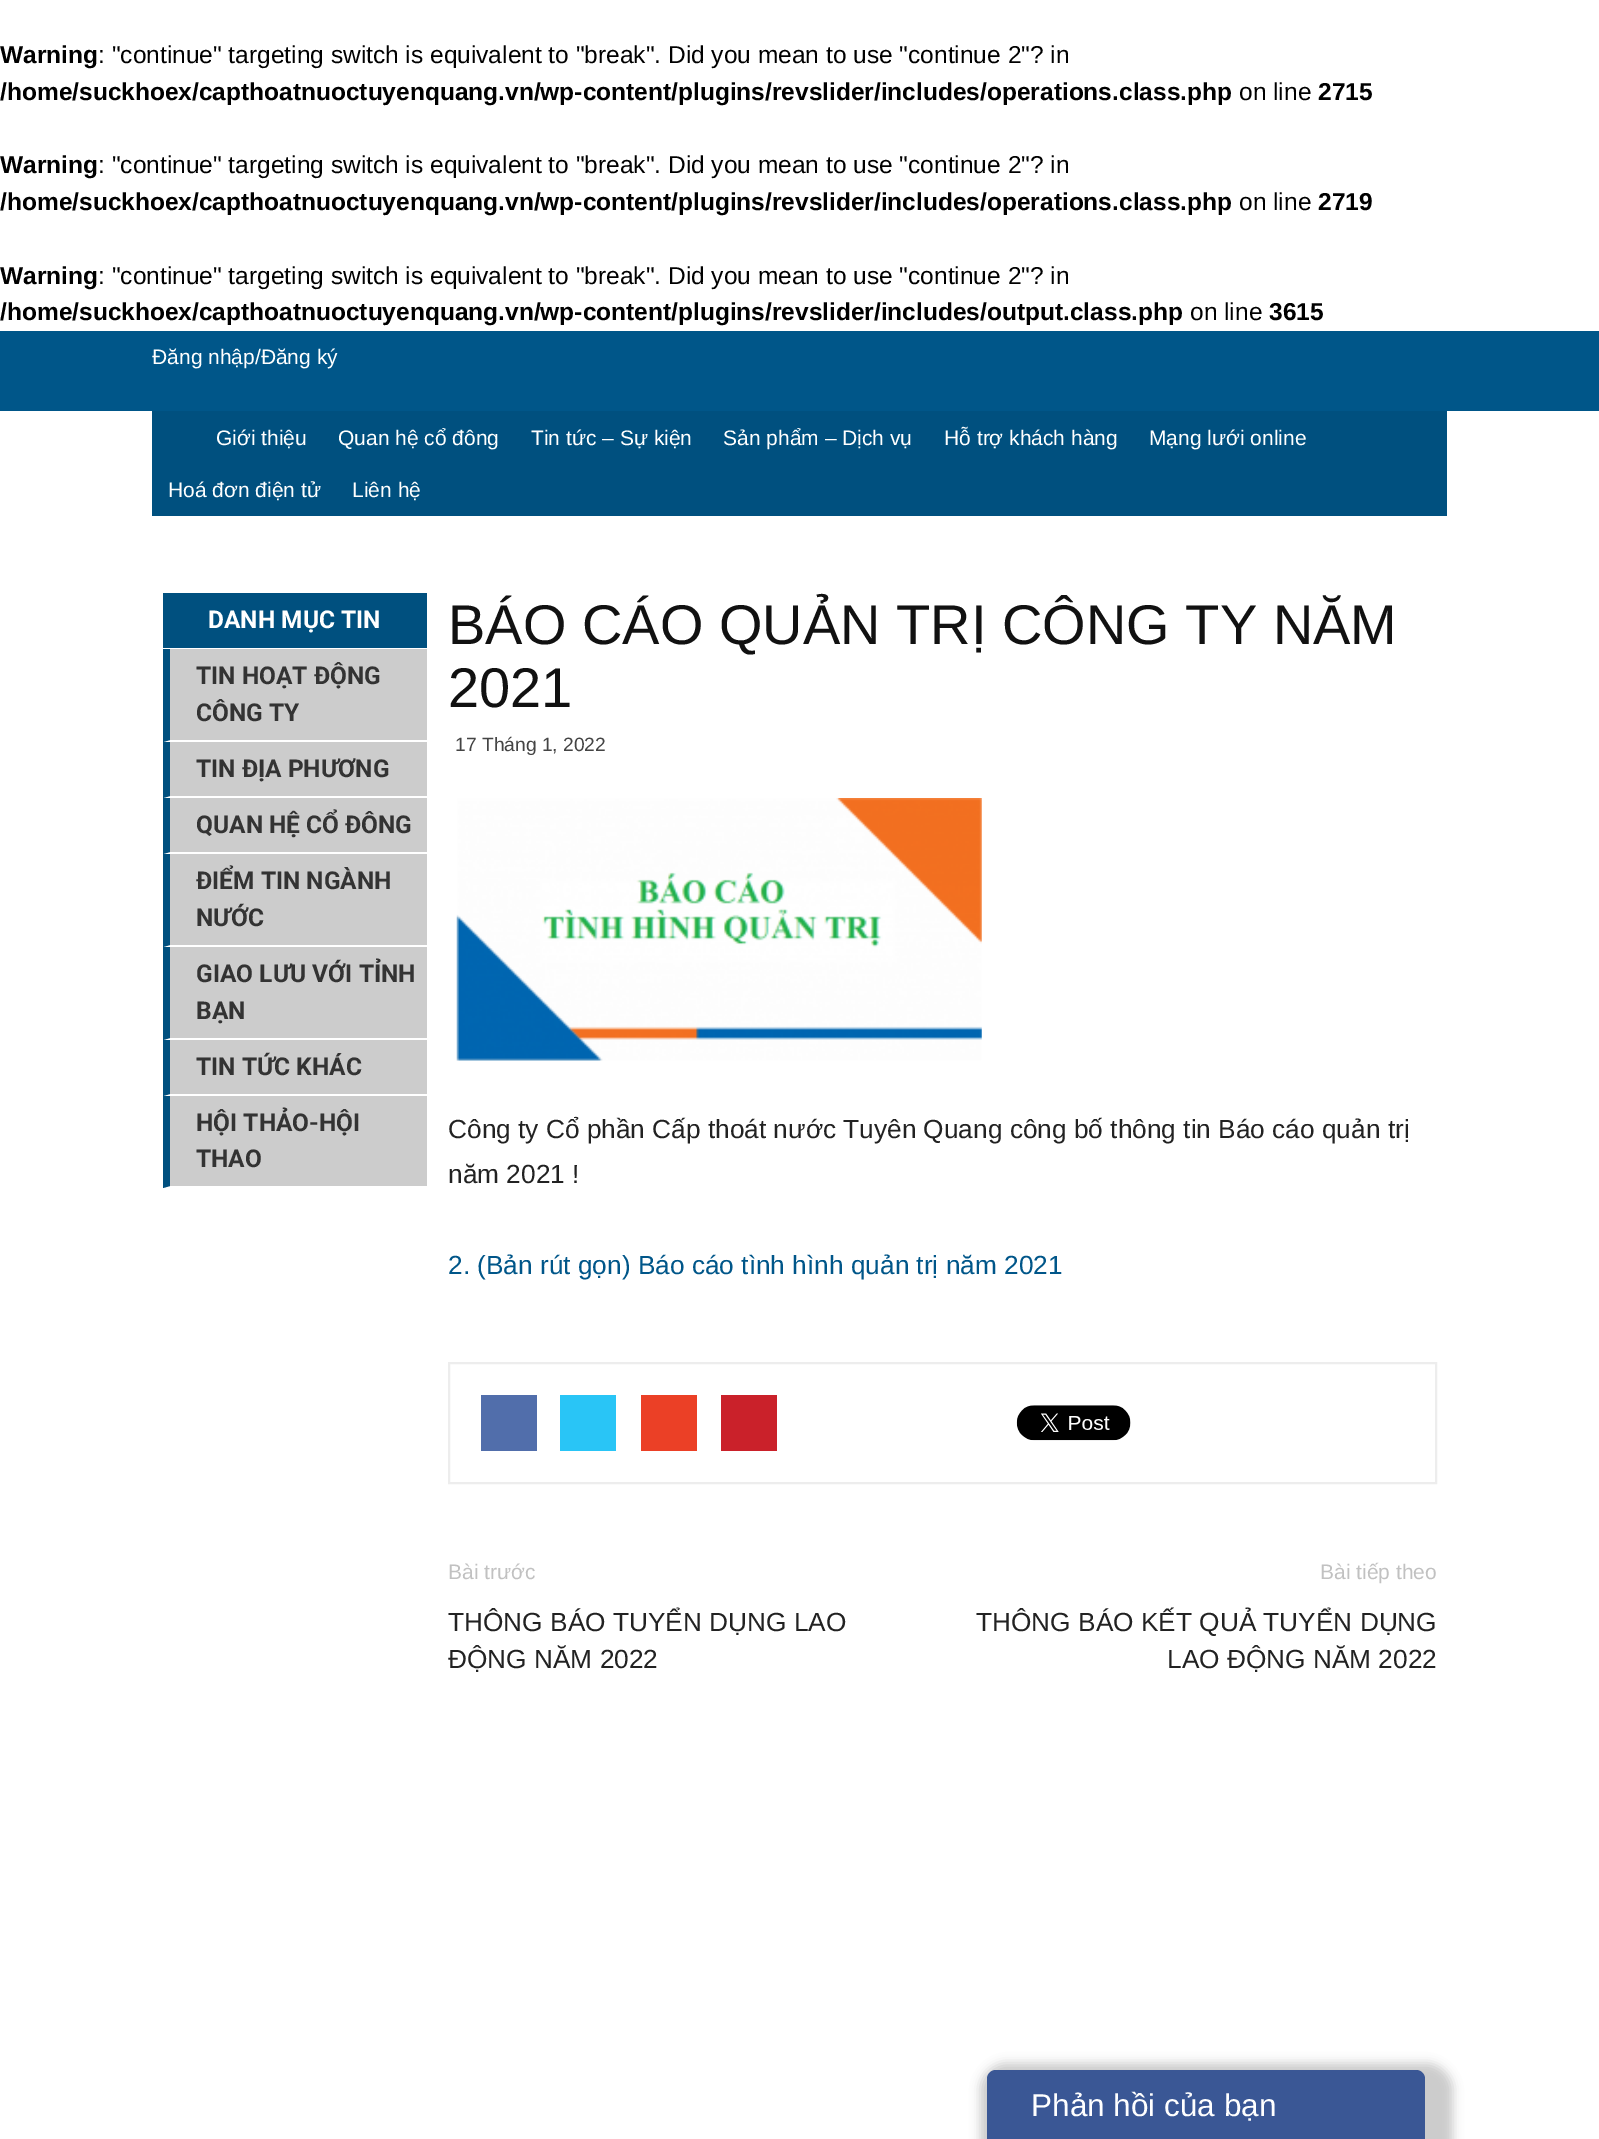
%!PS-Adobe-3.0
%%BoundingBox: 0 0 1599 2139
%%LanguageLevel: 3
%%Pages: 1
%%EndComments
%%BeginProlog
/m { moveto } bind def
/l { lineto } bind def
/c { curveto } bind def
/h { closepath } bind def
/f { fill } bind def
/w { setlinewidth } bind def
/fn { [ exch dup neg 0 0 3 -1 roll 0 0 ] selectfont } def
/tx { moveto show } def
/bx { rectfill } def
/al { dup .setfillconstantalpha .setstrokeconstantalpha } def
/rr { 5 dict begin { /r /h /w /y /x } { exch def } forall
  x r add y moveto x w add y 2 copy h add r arct x w add y h add x 1 index r arct
  x y h add x y r arct x y 2 copy exch w add exch r arct closepath end } def
/sh { 12 dict begin { /a /b /q /h /w /y /x } { exch def } forall gsave /was 0 def
  9 -2 -9 { dup b mul 4 div /e exch def 1 sub .425 mul 2.718 exch exp 1 add a .99 .min exch div /now exch def
    1 1 now sub 1 was sub div sub al /was now def
    w h .min e 2 mul add 0 gt { x e sub y e sub w e 2 mul add h e 2 mul add
      q e add b .6 mul add w h .min 2 div e add .min 0 .max rr fill } if } for grestore end } def
/im { 5 dict begin { /h /w /y /x /name } { exch def } forall
  gsave x y translate w h scale
  w h 8 [w 0 0 h 0 0] name (r) file false 3 colorimage grestore end } def
%%EndProlog
%%BeginSetup
<< /PageSize [1599 2139] /PageUsesTransparency true >> setpagedevice
%%EndSetup
%%Page: 1 1
0 .pushpdf14devicefilter
0 2139 translate 1 -1 scale
4 setmiterlimit
1 setgray
0 0 1599 2139 bx
/LiberationSans-Bold 24.5 fn
0 setgray
(Warning) 0 63 tx
/LiberationSans-Regular 24.5 fn
(: "continue" targeting switch is equivalent to "break". Did you mean to use "continue 2"? in) 98 63 tx
/LiberationSans-Bold 24.5 fn
(/home/suckhoex/capthoatnuoctuyenquang.vn/wp-content/plugins/revslider/includes/operations.class.php) 0 100 tx
/LiberationSans-Regular 24.5 fn
(on line) 1239 100 tx
/LiberationSans-Bold 24.5 fn
(2715) 1318 100 tx
(Warning) 0 173 tx
/LiberationSans-Regular 24.5 fn
(: "continue" targeting switch is equivalent to "break". Did you mean to use "continue 2"? in) 98 173 tx
/LiberationSans-Bold 24.5 fn
(/home/suckhoex/capthoatnuoctuyenquang.vn/wp-content/plugins/revslider/includes/operations.class.php) 0 210 tx
/LiberationSans-Regular 24.5 fn
(on line) 1239 210 tx
/LiberationSans-Bold 24.5 fn
(2719) 1318 210 tx
(Warning) 0 284 tx
/LiberationSans-Regular 24.5 fn
(: "continue" targeting switch is equivalent to "break". Did you mean to use "continue 2"? in) 98 284 tx
/LiberationSans-Bold 24.5 fn
(/home/suckhoex/capthoatnuoctuyenquang.vn/wp-content/plugins/revslider/includes/output.class.php) 0 320 tx
/LiberationSans-Regular 24.5 fn
(on line) 1190 320 tx
/LiberationSans-Bold 24.5 fn
(3615) 1269 320 tx
0 0.337 0.537 setrgbcolor
0 331 1599 80 bx
/LiberationSans-Regular 21 fn
1 setgray
(Đăng nhập/Đăng ký) 152 364 tx
0 0.314 0.498 setrgbcolor
152 411 1295 105 bx
1 setgray
(Giới thiệu) 216 445 tx
(Quan hệ cổ đông) 338 445 tx
(Tin tức – Sự kiện) 531 445 tx
(Sản phẩm – Dịch vụ) 723 445 tx
(Hỗ trợ khách hàng) 944 445 tx
(Mạng lưới online) 1149 445 tx
(Hoá đơn điện tử) 168 497 tx
(Liên hệ) 352 497 tx
0 0.314 0.498 setrgbcolor
163 593 264 55 bx
/Roboto-Bold 24.5 fn
1 setgray
(DANH MỤC TIN) 208 628 tx
0.8 setgray
163 649 264 539 bx
1 setgray
427 742 m 163 742 l 170 740 l 427 740 l h f
0 0.314 0.498 setrgbcolor
163 742 m 163 649 l 170 649 l 170 740 l h f
0.2 setgray
(TIN HOẠT ĐỘNG) 196 684 tx
(CÔNG TY) 196 721 tx
1 setgray
427 798 m 163 798 l 170 796 l 427 796 l h f
0 0.314 0.498 setrgbcolor
163 798 m 163 742 l 170 742 l 170 796 l h f
0.2 setgray
(TIN ĐỊA PHƯƠNG) 196 777 tx
1 setgray
427 854 m 163 854 l 170 852 l 427 852 l h f
0 0.314 0.498 setrgbcolor
163 854 m 163 798 l 170 798 l 170 852 l h f
0.2 setgray
(QUAN HỆ CỔ ĐÔNG) 196 833 tx
1 setgray
427 947 m 163 947 l 170 945 l 427 945 l h f
0 0.314 0.498 setrgbcolor
163 947 m 163 854 l 170 854 l 170 945 l h f
0.2 setgray
(ĐIỂM TIN NGÀNH) 196 889 tx
(NƯỚC) 196 926 tx
1 setgray
427 1040 m 163 1040 l 170 1038 l 427 1038 l h f
0 0.314 0.498 setrgbcolor
163 1040 m 163 947 l 170 947 l 170 1038 l h f
0.2 setgray
(GIAO LƯU VỚI TỈNH) 196 982 tx
(BẠN) 196 1019 tx
1 setgray
427 1096 m 163 1096 l 170 1094 l 427 1094 l h f
0 0.314 0.498 setrgbcolor
163 1096 m 163 1040 l 170 1040 l 170 1094 l h f
0.2 setgray
(TIN TỨC KHÁC) 196 1075 tx
1 setgray
427 1188 m 163 1188 l 170 1186 l 427 1186 l h f
0 0.314 0.498 setrgbcolor
163 1188 m 163 1096 l 170 1096 l 170 1186 l h f
0.2 setgray
(HỘI THẢO-HỘI) 196 1131 tx
(THAO) 196 1167 tx
/LiberationSans-Regular 56 fn
0.067 setgray
(BÁO CÁO QUẢN TRỊ CÔNG TY NĂM) 448 644 tx
(2021) 448 707 tx
/LiberationSans-Regular 19.25 fn
0.267 setgray
(17 Tháng 1, 2022) 455 751 tx
(image0.raw) 456 798 526 263 im
/LiberationSans-Regular 26.25 fn
0.133 setgray
(Công ty Cổ phần Cấp thoát nước Tuyên Quang công bố thông tin Báo cáo quản trị) 448 1138 tx
(năm 2021 !) 448 1183 tx
0 0.337 0.537 setrgbcolor
(2. \(Bản rút gọn\) Báo cáo tình hình quản trị năm 2021) 448 1274 tx
0.929 setgray
2 w
449 1363 987 120 rectstroke
0.318 0.431 0.671 setrgbcolor
481 1395 56 56 bx
0.161 0.773 0.965 setrgbcolor
560 1395 56 56 bx
0.922 0.251 0.149 setrgbcolor
641 1395 56 56 bx
0.792 0.129 0.165 setrgbcolor
721 1395 56 56 bx
(image1.raw) 1016 1405 115 36 im
/LiberationSans-Regular 21 fn
0.757 setgray
(Bài trước) 448 1579 tx
/LiberationSans-Regular 26.25 fn
0.133 setgray
(THÔNG BÁO TUYỂN DỤNG LAO) 448 1631 tx
(ĐỘNG NĂM 2022) 448 1668 tx
/LiberationSans-Regular 21 fn
0.757 setgray
(Bài tiếp theo) 1320 1579 tx
/LiberationSans-Regular 26.25 fn
0.133 setgray
(THÔNG BÁO KẾT QUẢ TUYỂN DỤNG) 976 1631 tx
(LAO ĐỘNG NĂM 2022) 1167 1668 tx
0 setgray
980 2063 473 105 26 5 0.2 sh
0.227 0.341 0.584 setrgbcolor
996 2070 m 1416 2070 l 1421 2070 1425 2074 1425 2079 c 1425 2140 l 987 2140 l 987 2079 l 987 2074 991 2070 996 2070 c h f
/LiberationSans-Regular 31.5 fn
1 setgray
(Phản hồi của bạn) 1031 2116 tx
.poppdf14devicefilter showpage
%%EOF
